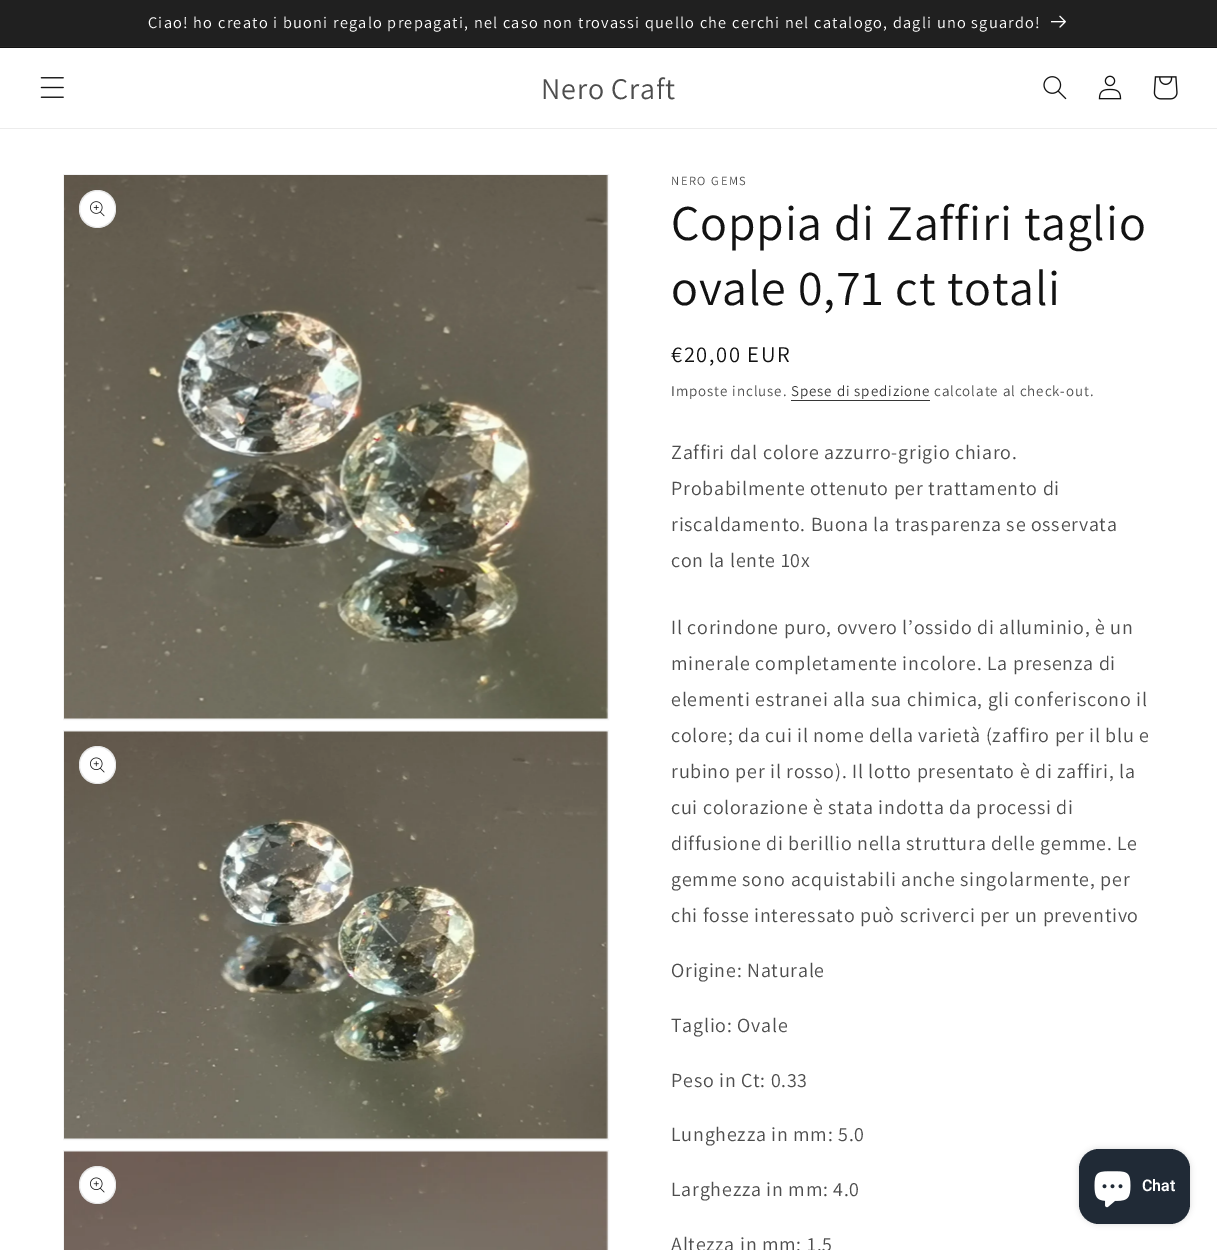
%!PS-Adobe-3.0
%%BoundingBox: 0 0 1217 1250
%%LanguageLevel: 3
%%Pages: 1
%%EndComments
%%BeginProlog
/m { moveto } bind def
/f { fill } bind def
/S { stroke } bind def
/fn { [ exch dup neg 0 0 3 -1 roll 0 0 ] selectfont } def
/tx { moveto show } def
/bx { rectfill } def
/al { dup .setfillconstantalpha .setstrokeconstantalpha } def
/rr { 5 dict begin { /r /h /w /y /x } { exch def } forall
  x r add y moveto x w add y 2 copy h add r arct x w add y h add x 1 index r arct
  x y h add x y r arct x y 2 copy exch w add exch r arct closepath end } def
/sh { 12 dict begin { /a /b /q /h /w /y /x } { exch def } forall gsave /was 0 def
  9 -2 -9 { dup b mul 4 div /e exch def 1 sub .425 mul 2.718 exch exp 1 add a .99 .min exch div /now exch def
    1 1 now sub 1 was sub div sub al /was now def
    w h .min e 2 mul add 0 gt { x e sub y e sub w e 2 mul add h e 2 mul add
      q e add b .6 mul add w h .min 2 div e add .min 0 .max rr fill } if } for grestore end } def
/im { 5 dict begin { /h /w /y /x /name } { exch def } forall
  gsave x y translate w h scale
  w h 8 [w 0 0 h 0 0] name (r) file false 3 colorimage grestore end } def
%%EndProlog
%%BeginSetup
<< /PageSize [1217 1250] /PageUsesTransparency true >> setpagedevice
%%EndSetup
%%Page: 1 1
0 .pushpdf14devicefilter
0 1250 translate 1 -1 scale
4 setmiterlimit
1 setgray
0 0 1217 1250 bx
0.071 setgray
0 47 1217 1 bx
0.145 setgray
0 46 1217 1 bx
0.125 setgray
0 0 1217 46 bx
/Assistant-Regular 16.25 fn
1 setgray
148 28 m 1.25 0 (Ciao! ho creato i buoni regalo prepagati, nel caso non trovassi quello che cerchi nel catalogo, dagli uno sguardo!) ashow
(image0.raw) 1051 15 15 13 im
0.925 setgray
0 128 1217 1 bx
(image1.raw) 40 77 24 21 im
/Assistant-Regular 30 fn
0.302 setgray
541 99 m 0.75 0 (Nero Craft) ashow
(image2.raw) 1043 76 24 24 im
(image3.raw) 1098 75 24 25 im
(image4.raw) 1153 76 25 24 im
0.953 setgray
63.5 174.5 545 545 rectstroke
(image5.raw) 64 175 544 544 im
1 setgray
79 190 37 38 18.5 rr f
0.1 al
0.071 setgray
79.5 190.5 36 37 18 rr S
1 al
(image6.raw) 90 201 15 16 im
0.953 setgray
63.5 730.5 545 409 rectstroke
(image7.raw) 64 731 544 408 im
1 setgray
79 746 37 38 18.5 rr f
0.1 al
0.071 setgray
79.5 746.5 36 37 18 rr S
1 al
(image8.raw) 90 757 15 16 im
0.953 setgray
63.5 1150.5 545 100 rectstroke
(image9.raw) 64 1151 544 99 im
1 setgray
79 1166 37 38 18.5 rr f
0.1 al
0.071 setgray
79.5 1166.5 36 37 18 rr S
1 al
(image8.raw) 90 1177 15 16 im
/Assistant-Regular 12.5 fn
0.302 setgray
671 185 m 1.6 0 (NERO GEMS) ashow
/Assistant-Regular 50 fn
0.071 setgray
671 240 m 0.75 0 (Coppia di Zaffiri taglio) ashow
671 305 m 0.75 0 (ovale 0,71 ct totali) ashow
/Assistant-Regular 22.5 fn
671 362 m 1.6 0 (€20,00 EUR) ashow
/Assistant-Regular 15 fn
0.302 setgray
671 396 m 0.9 0 (Imposte incluse.) ashow
0.212 setgray
791 396 m 0.9 0 (Spese di spedizione) ashow
791 400 139 1 bx
0.302 setgray
934 396 m 0.9 0 (calcolate al check-out.) ashow
/Assistant-Regular 20 fn
671 459 m 0.75 0 (Zaffiri dal colore azzurro-grigio chiaro.) ashow
671 495 m 0.75 0 (Probabilmente ottenuto per trattamento di) ashow
671 531 m 0.75 0 (riscaldamento. Buona la trasparenza se osservata) ashow
671 567 m 0.75 0 (con la lente 10x) ashow
671 634 m 0.75 0 (Il corindone puro, ovvero l’ossido di alluminio, è un) ashow
671 670 m 0.75 0 (minerale completamente incolore. La presenza di) ashow
671 706 m 0.75 0 (elementi estranei alla sua chimica, gli conferiscono il) ashow
671 742 m 0.75 0 (colore; da cui il nome della varietà \(zaffiro per il blu e) ashow
671 778 m 0.75 0 (rubino per il rosso\). Il lotto presentato è di zaffiri, la) ashow
671 814 m 0.75 0 (cui colorazione è stata indotta da processi di) ashow
671 850 m 0.75 0 (diffusione di berillio nella struttura delle gemme. Le) ashow
671 886 m 0.75 0 (gemme sono acquistabili anche singolarmente, per) ashow
671 922 m 0.75 0 (chi fosse interessato può scriverci per un preventivo) ashow
671 977 m 0.75 0 (Origine: Naturale) ashow
671 1032 m 0.75 0 (Taglio: Ovale) ashow
671 1087 m 0.75 0 (Peso in Ct: 0.33) ashow
671 1141 m 0.75 0 (Lunghezza in mm: 5.0) ashow
671 1196 m 0.75 0 (Larghezza in mm: 4.0) ashow
671 1251 m 0.75 0 (Altezza in mm: 1.5) ashow
0 setgray
1079 1149 111 75 20 3 0.15 sh
0.125 0.165 0.212 setrgbcolor
1079 1149 111 75 20 rr f
(image10.raw) 1094 1171 37 37 im
/Roboto-SemiBold 16 fn
1 setgray
(Chat) 1142 1191 tx
.poppdf14devicefilter showpage
%%EOF
